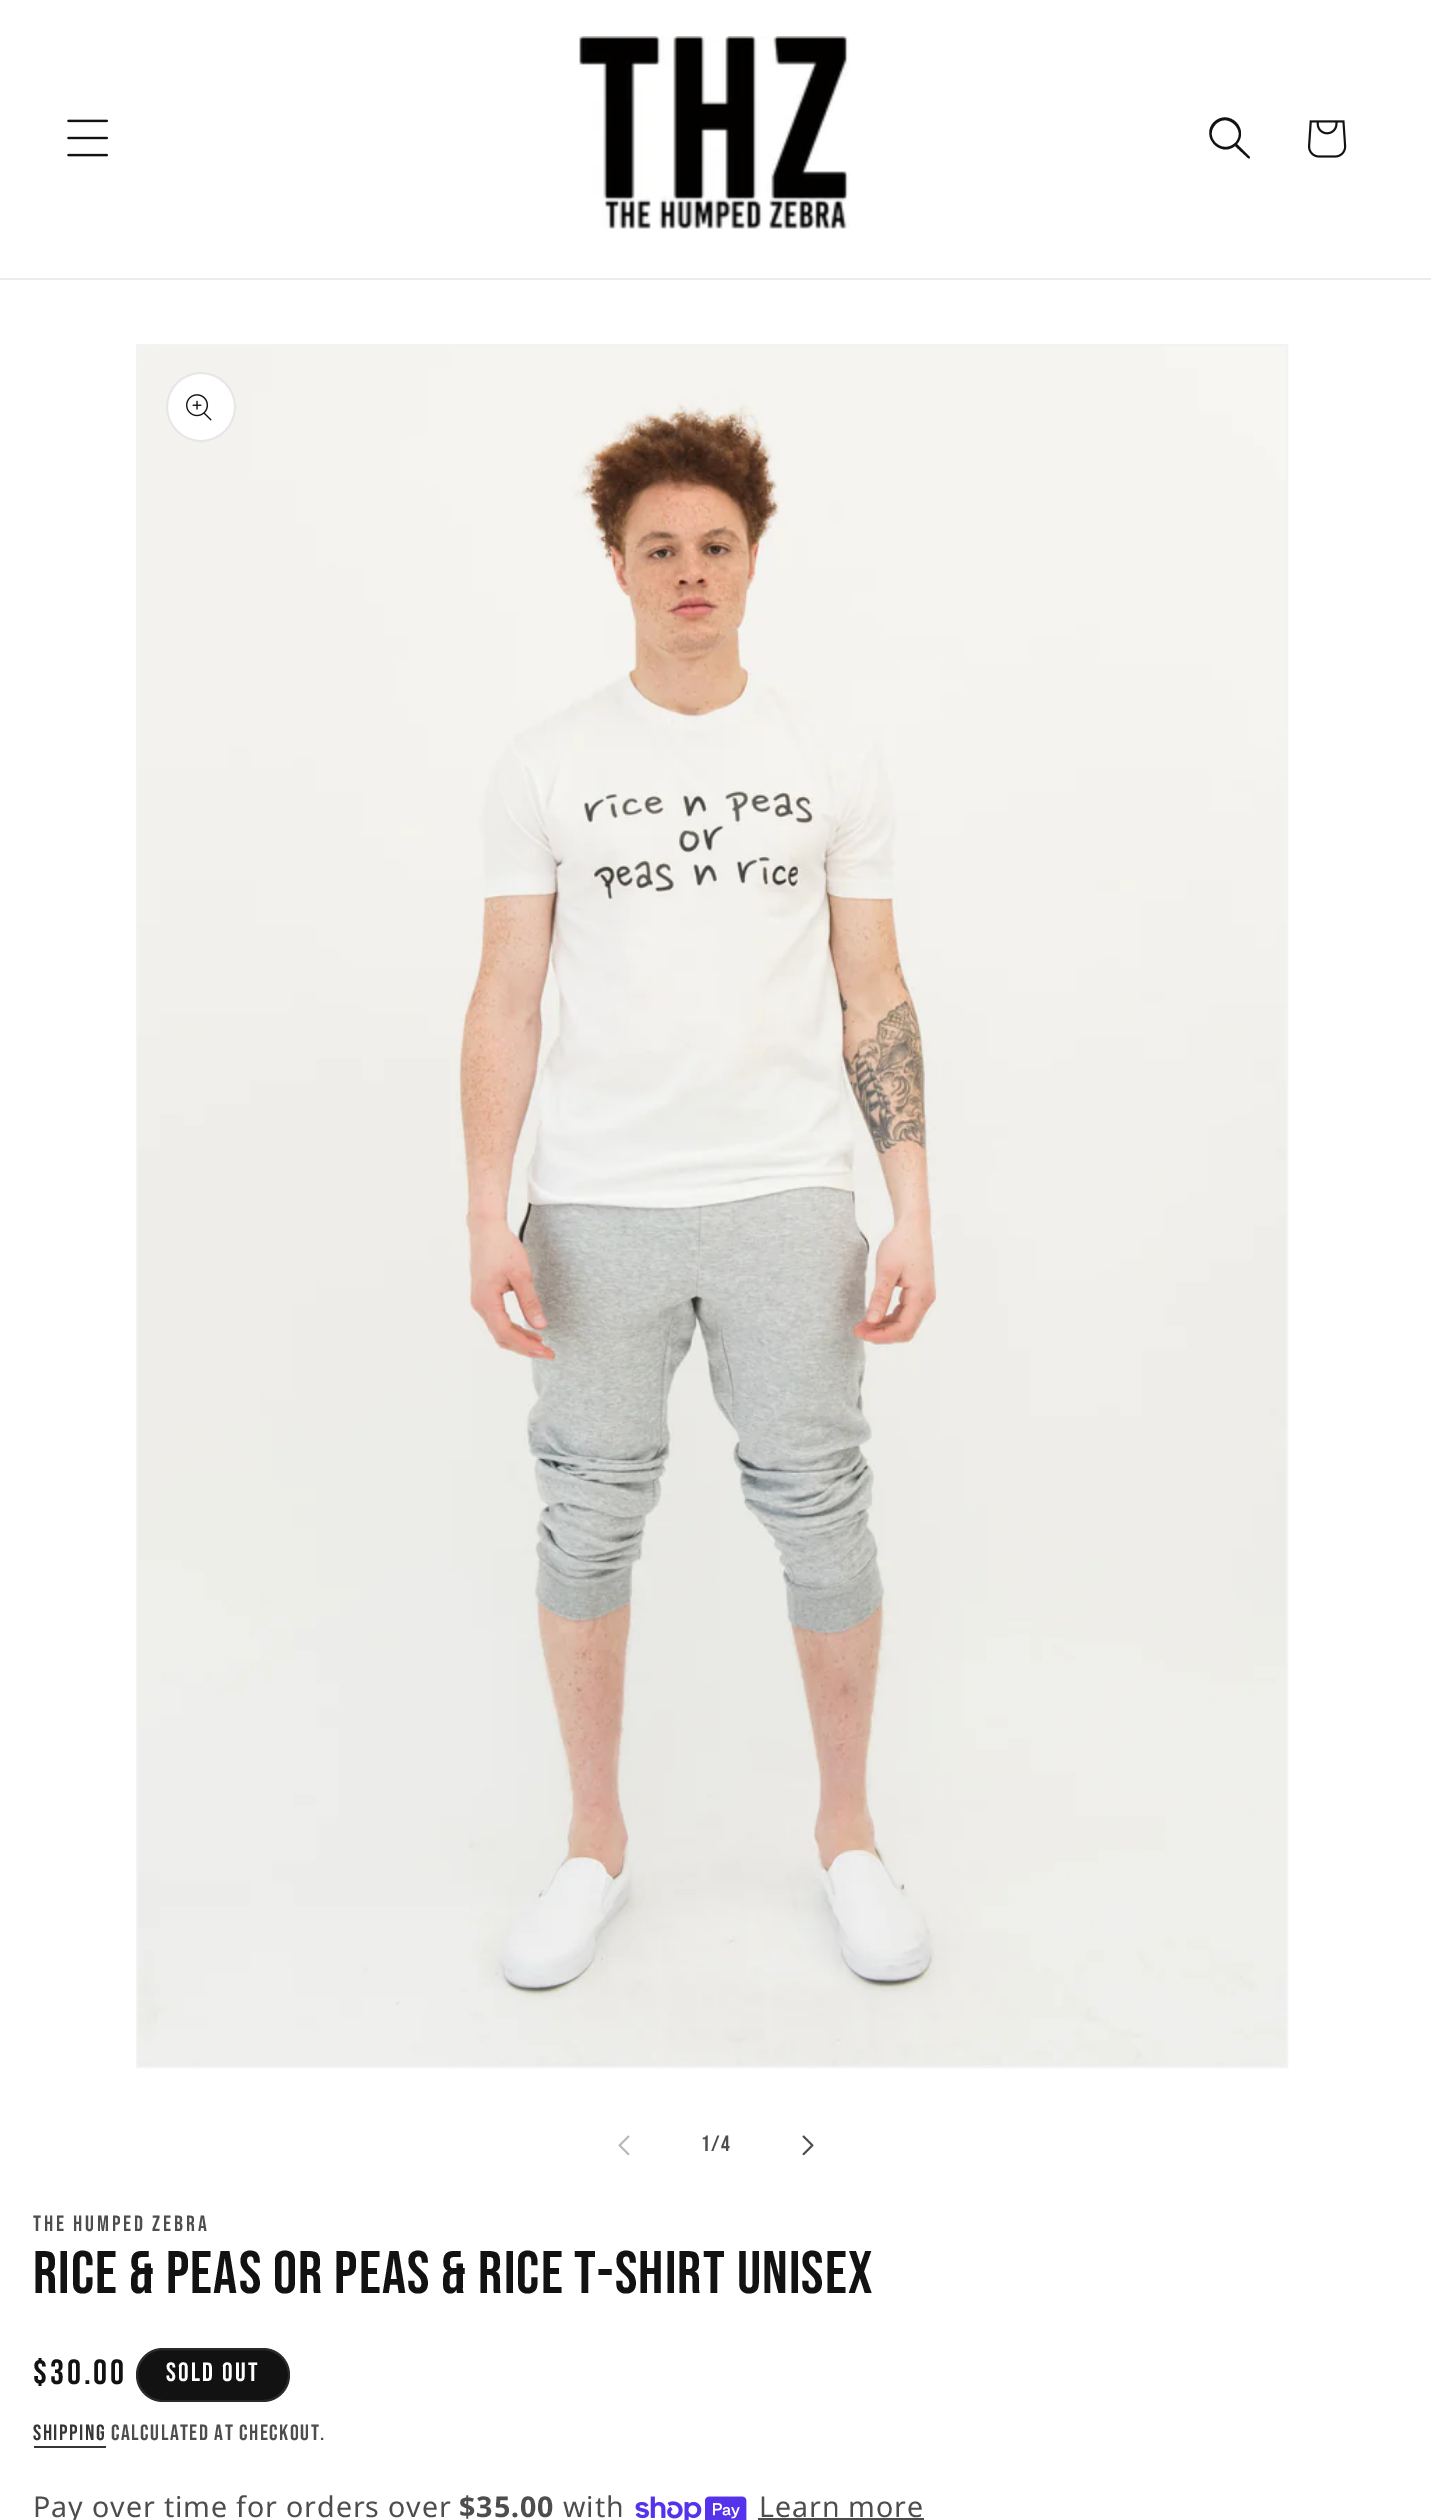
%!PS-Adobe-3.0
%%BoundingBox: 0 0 1431 2520
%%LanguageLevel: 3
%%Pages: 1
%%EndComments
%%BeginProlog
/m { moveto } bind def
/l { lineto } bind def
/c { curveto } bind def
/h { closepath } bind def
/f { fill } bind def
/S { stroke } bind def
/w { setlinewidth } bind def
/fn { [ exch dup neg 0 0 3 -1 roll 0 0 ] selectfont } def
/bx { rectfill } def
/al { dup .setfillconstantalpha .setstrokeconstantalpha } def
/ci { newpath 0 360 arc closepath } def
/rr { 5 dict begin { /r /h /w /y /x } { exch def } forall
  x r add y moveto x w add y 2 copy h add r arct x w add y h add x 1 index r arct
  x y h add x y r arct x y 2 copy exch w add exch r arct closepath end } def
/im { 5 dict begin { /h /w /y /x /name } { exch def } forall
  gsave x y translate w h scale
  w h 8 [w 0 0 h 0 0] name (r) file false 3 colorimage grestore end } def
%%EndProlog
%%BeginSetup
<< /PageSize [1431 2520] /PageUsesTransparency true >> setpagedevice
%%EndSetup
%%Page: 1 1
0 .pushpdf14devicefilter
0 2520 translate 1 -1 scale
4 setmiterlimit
1 setgray
0 0 1431 2520 bx
0.925 setgray
0 278 1431 2 bx
(image0.raw) 67 119 41 38 im
(image1.raw) 579 36 271 193 im
0.071 setgray
1235 143 m 1222 155 1203 137 1216 124 c 1228 112 1247 131 1235 143 c 1235 146 m 1220 158 1200 136 1214 122 c 1229 108 1250 129 1237 144 c 1250 157 l 1250 158 1249 159 1248 158 c h eofill
(image2.raw) 1308 120 39 38 im
0.953 setgray
2 w
137 345 1150 1722 rectstroke
(image3.raw) 138 346 1148 1720 im
1 setgray
201 407 35 ci f
0.1 al
0.071 setgray
201 407 34 ci S
1 al
(image4.raw) 186 394 26 27 im
(image5.raw) 618 2135 12 21 im
/BebasNeue-Regular 22 fn
0.302 setgray
701 2151 m 1.5 0 (1/4) ashow
(image6.raw) 802 2135 12 21 im
33 2231 m 2.9 0 (THE HUMPED ZEBRA) ashow
/BebasNeue-Regular 60 fn
0.071 setgray
33 2293 m 1.2 0 (Rice & Peas or Peas & Rice T-Shirt Unisex) ashow
/BebasNeue-Regular 35 fn
33 2384 m 2.9 0 ($30.00) ashow
136 2348 154 54 27 rr f
0.1 al
1 setgray
137 2349 152 52 26 rr S
/BebasNeue-Regular 26.5 fn
1 al
166 2381 m 2.25 0 (Sold out) ashow
/BebasNeue-Regular 22 fn
0.212 setgray
33 2440 m 1.5 0 (Shipping) ashow
34 2446 72 2 bx
0.302 setgray
111 2440 m 1.5 0 (calculated at checkout.) ashow
/NotoSans-Regular 28.6 fn
33 2517 m 0.9 0 (Pay over time for orders over) ashow
/NotoSans-Bold 28.6 fn
459 2517 m 0.9 0 ($35.00) ashow
/NotoSans-Regular 28.6 fn
563 2517 m 0.9 0 (with) ashow
(image7.raw) 635 2496 112 24 im
759 2517 m 0.9 0 (Learn more) ashow
758 2518 166 2 bx
.poppdf14devicefilter showpage
%%EOF
